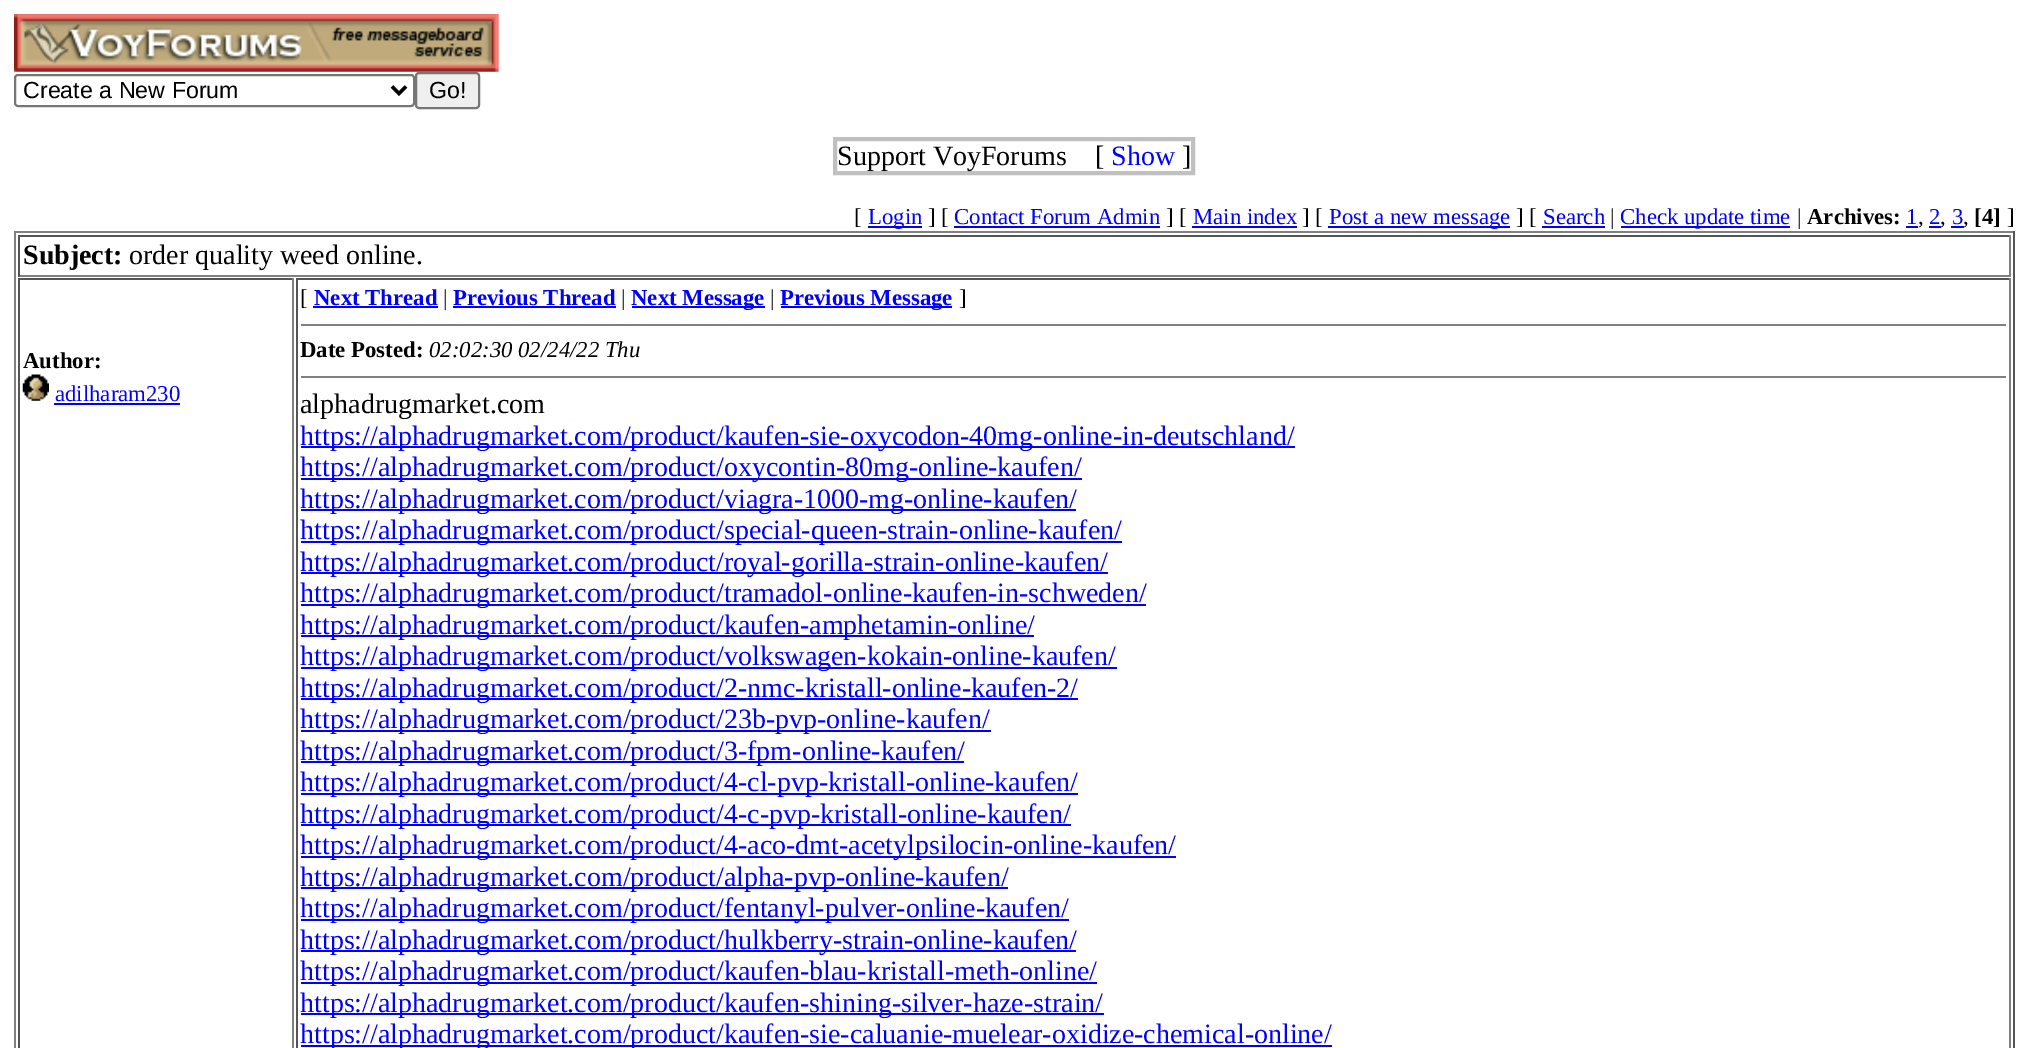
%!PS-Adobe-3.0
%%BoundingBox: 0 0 2028 1048
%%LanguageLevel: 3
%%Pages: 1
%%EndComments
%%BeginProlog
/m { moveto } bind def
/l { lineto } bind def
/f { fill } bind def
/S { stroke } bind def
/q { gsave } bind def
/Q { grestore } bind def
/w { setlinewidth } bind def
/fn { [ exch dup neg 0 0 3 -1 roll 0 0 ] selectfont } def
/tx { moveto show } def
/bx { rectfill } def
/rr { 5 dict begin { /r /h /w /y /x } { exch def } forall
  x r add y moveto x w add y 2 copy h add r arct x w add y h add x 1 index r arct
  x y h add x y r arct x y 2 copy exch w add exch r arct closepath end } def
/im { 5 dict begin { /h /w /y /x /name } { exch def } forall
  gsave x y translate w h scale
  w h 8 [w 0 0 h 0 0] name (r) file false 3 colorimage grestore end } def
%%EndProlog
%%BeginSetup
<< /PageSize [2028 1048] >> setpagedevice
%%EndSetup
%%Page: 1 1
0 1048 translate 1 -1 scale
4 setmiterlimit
1 setgray
0 0 2028 1048 bx
(image0.raw) 14 14 485 58 im
0.463 setgray
2 w
15 75 399 31 3 rr S
0 setgray
3.5 w
392 86.5 m 399 93.5 l 406 86.5 l S
/LiberationSans-Regular 23.25 fn
(Create a New Forum) 23 98 tx
0.937 setgray
416 73 63 35 3 rr q f Q
0.463 setgray
2 w
S
0 setgray
(Go!) 429 98 tx
0.753 setgray
4 w
835 139 358 34 rectstroke
/LiberationSerif-Regular 28 fn
0 setgray
(Support VoyForums) 837 165 tx
([) 1095 165 tx
0 0 1 setrgbcolor
(Show) 1111 165 tx
0 setgray
(]) 1182 165 tx
/LiberationSerif-Regular 22.75 fn
([) 854 224 tx
0 0 1 setrgbcolor
868 226 54 2 bx
(Login) 868 224 tx
0 setgray
(] [) 928 224 tx
0 0 1 setrgbcolor
(Contact Forum Admin) 954 224 tx
954 226 206 2 bx
0 setgray
(] [) 1166 224 tx
0 0 1 setrgbcolor
(Main index) 1193 224 tx
1192 226 105 2 bx
0 setgray
(] [) 1302 224 tx
0 0 1 setrgbcolor
1328 226 182 2 bx
(Post a new message) 1329 224 tx
0 setgray
(] [) 1516 224 tx
0 0 1 setrgbcolor
(Search) 1543 224 tx
1542 226 63 2 bx
0 setgray
(|) 1610 224 tx
0 0 1 setrgbcolor
1621 226 169 2 bx
(Check update time) 1620 224 tx
0 setgray
(|) 1797 224 tx
/LiberationSerif-Bold 22.75 fn
(Archives:) 1807 224 tx
/LiberationSerif-Regular 22.75 fn
0 0 1 setrgbcolor
(1) 1906 224 tx
0 setgray
(,) 1918 224 tx
0 0 1 setrgbcolor
1906 226 12 2 bx
(2) 1929 224 tx
0 setgray
(,) 1940 224 tx
0 0 1 setrgbcolor
1929 226 12 2 bx
(3) 1952 224 tx
1951 226 13 2 bx
0 setgray
(,) 1963 224 tx
/LiberationSerif-Bold 22.75 fn
([4]) 1974 224 tx
/LiberationSerif-Regular 22.75 fn
(]) 2007 224 tx
0.502 setgray
14 231 2000 2 bx
0.333 setgray
2013 231 2 817 bx
0.502 setgray
14 231 2 817 bx
0.333 setgray
18 235 1993 2 bx
0.502 setgray
2009 235 2 42 bx
18 275 1993 2 bx
0.333 setgray
18 235 2 42 bx
/LiberationSerif-Bold 28 fn
0 setgray
(Subject:) 23 264 tx
/LiberationSerif-Regular 28 fn
(order quality weed online.) 129 264 tx
0.333 setgray
18 278 276 2 bx
0.502 setgray
292 278 2 770 bx
0.333 setgray
18 278 2 770 bx
/LiberationSerif-Bold 22.75 fn
0 setgray
(Author:) 23 368 tx
(image1.raw) 22 374 27 27 im
/LiberationSerif-Regular 22.75 fn
0 0 1 setrgbcolor
(adilharam230) 55 401 tx
54 403 126 2 bx
0.333 setgray
296 278 1715 2 bx
0.502 setgray
2009 278 2 770 bx
0.333 setgray
296 278 2 770 bx
0 setgray
([) 300 305 tx
/LiberationSerif-Bold 22.75 fn
0 0 1 setrgbcolor
(Next Thread) 314 305 tx
313 306 125 2 bx
/LiberationSerif-Regular 22.75 fn
0 setgray
(|) 443 305 tx
/LiberationSerif-Bold 22.75 fn
0 0 1 setrgbcolor
(Previous Thread) 453 305 tx
453 306 163 2 bx
/LiberationSerif-Regular 22.75 fn
0 setgray
(|) 621 305 tx
0 0 1 setrgbcolor
632 306 133 2 bx
/LiberationSerif-Bold 22.75 fn
(Next Message) 631 305 tx
/LiberationSerif-Regular 22.75 fn
0 setgray
(|) 770 305 tx
0 0 1 setrgbcolor
781 306 171 2 bx
/LiberationSerif-Bold 22.75 fn
(Previous Message) 780 305 tx
/LiberationSerif-Regular 22.75 fn
0 setgray
(]) 959 305 tx
0.502 setgray
301 324 1705 2 bx
/LiberationSerif-Bold 22.75 fn
0 setgray
(Date Posted:) 300 357 tx
/LiberationSerif-Italic 22.75 fn
(02:02:30 02/24/22 Thu) 429 357 tx
0.502 setgray
301 376 1705 2 bx
/LiberationSerif-Regular 28 fn
0 setgray
(alphadrugmarket.com) 300 413 tx
0 0 1 setrgbcolor
301 446 994 2 bx
(https://alphadrugmarket.com/product/kaufen-sie-oxycodon-40mg-online-in-deutschland/) 300 445 tx
301 478 781 2 bx
(https://alphadrugmarket.com/product/oxycontin-80mg-online-kaufen/) 300 476 tx
301 509 775 2 bx
(https://alphadrugmarket.com/product/viagra-1000-mg-online-kaufen/) 300 508 tx
301 541 821 2 bx
(https://alphadrugmarket.com/product/special-queen-strain-online-kaufen/) 300 539 tx
301 572 807 2 bx
(https://alphadrugmarket.com/product/royal-gorilla-strain-online-kaufen/) 300 571 tx
301 604 845 2 bx
(https://alphadrugmarket.com/product/tramadol-online-kaufen-in-schweden/) 300 602 tx
301 635 733 2 bx
(https://alphadrugmarket.com/product/kaufen-amphetamin-online/) 300 634 tx
301 667 816 2 bx
(https://alphadrugmarket.com/product/volkswagen-kokain-online-kaufen/) 300 665 tx
301 698 777 2 bx
(https://alphadrugmarket.com/product/2-nmc-kristall-online-kaufen-2/) 300 697 tx
301 730 690 2 bx
(https://alphadrugmarket.com/product/23b-pvp-online-kaufen/) 300 728 tx
301 761 663 2 bx
(https://alphadrugmarket.com/product/3-fpm-online-kaufen/) 300 760 tx
301 793 777 2 bx
(https://alphadrugmarket.com/product/4-cl-pvp-kristall-online-kaufen/) 300 791 tx
301 824 770 2 bx
(https://alphadrugmarket.com/product/4-c-pvp-kristall-online-kaufen/) 300 823 tx
301 856 875 2 bx
(https://alphadrugmarket.com/product/4-aco-dmt-acetylpsilocin-online-kaufen/) 300 854 tx
301 887 707 2 bx
(https://alphadrugmarket.com/product/alpha-pvp-online-kaufen/) 300 886 tx
301 919 768 2 bx
(https://alphadrugmarket.com/product/fentanyl-pulver-online-kaufen/) 300 917 tx
301 950 775 2 bx
(https://alphadrugmarket.com/product/hulkberry-strain-online-kaufen/) 300 949 tx
301 982 796 2 bx
(https://alphadrugmarket.com/product/kaufen-blau-kristall-meth-online/) 300 980 tx
301 1013 803 2 bx
(https://alphadrugmarket.com/product/kaufen-shining-silver-haze-strain/) 300 1012 tx
301 1045 1031 2 bx
(https://alphadrugmarket.com/product/kaufen-sie-caluanie-muelear-oxidize-chemical-online/) 300 1043 tx
showpage
%%EOF
